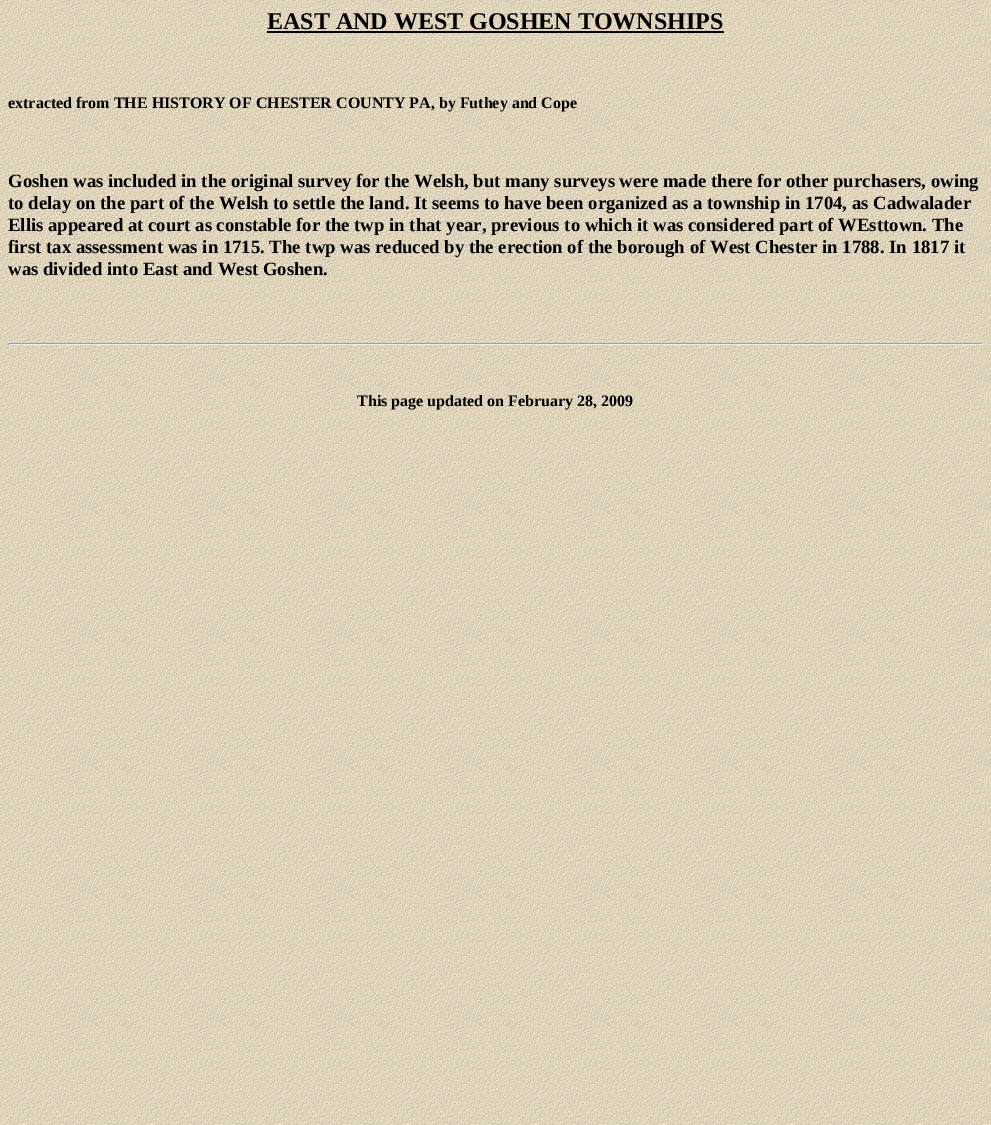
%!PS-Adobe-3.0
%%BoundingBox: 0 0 991 1125
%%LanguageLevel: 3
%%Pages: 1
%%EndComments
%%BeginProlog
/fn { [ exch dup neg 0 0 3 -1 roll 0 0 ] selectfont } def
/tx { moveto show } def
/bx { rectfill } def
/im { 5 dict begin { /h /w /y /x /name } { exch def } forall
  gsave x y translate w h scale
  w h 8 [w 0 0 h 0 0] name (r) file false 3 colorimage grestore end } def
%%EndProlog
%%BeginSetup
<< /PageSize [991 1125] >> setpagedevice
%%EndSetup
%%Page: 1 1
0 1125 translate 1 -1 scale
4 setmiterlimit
1 setgray
0 0 991 1125 bx
(image0.raw) 0 0 991 1125 im
/LiberationSerif-Bold 24 fn
0 setgray
(EAST AND WEST GOSHEN TOWNSHIPS) 267 29 tx
267 31 457 2 bx
/LiberationSerif-Bold 16 fn
(extracted from THE HISTORY OF CHESTER COUNTY PA, by Futhey and Cope) 8 108 tx
/LiberationSerif-Bold 18.72 fn
(Goshen was included in the original survey for the Welsh, but many surveys were made there for other purchasers, owing) 8 187 tx
(to delay on the part of the Welsh to settle the land.) 8 209 tx
(It seems to have been organized as a township in 1704, as Cadwalader) 414 209 tx
(Ellis appeared at court as constable for the twp in that year, previous to which it was considered part of WEsttown. The) 8 231 tx
(first tax assessment was in 1715. The twp was reduced by the erection of the borough of West Chester in 1788. In 1817 it) 8 253 tx
(was divided into East and West Goshen.) 8 275 tx
0.624 setgray
8 343 975 1 bx
0.933 setgray
982 343 1 2 bx
8 344 975 1 bx
0.624 setgray
8 343 1 2 bx
/LiberationSerif-Bold 16 fn
0 setgray
(This page updated on February 28, 2009) 357 406 tx
showpage
%%EOF
